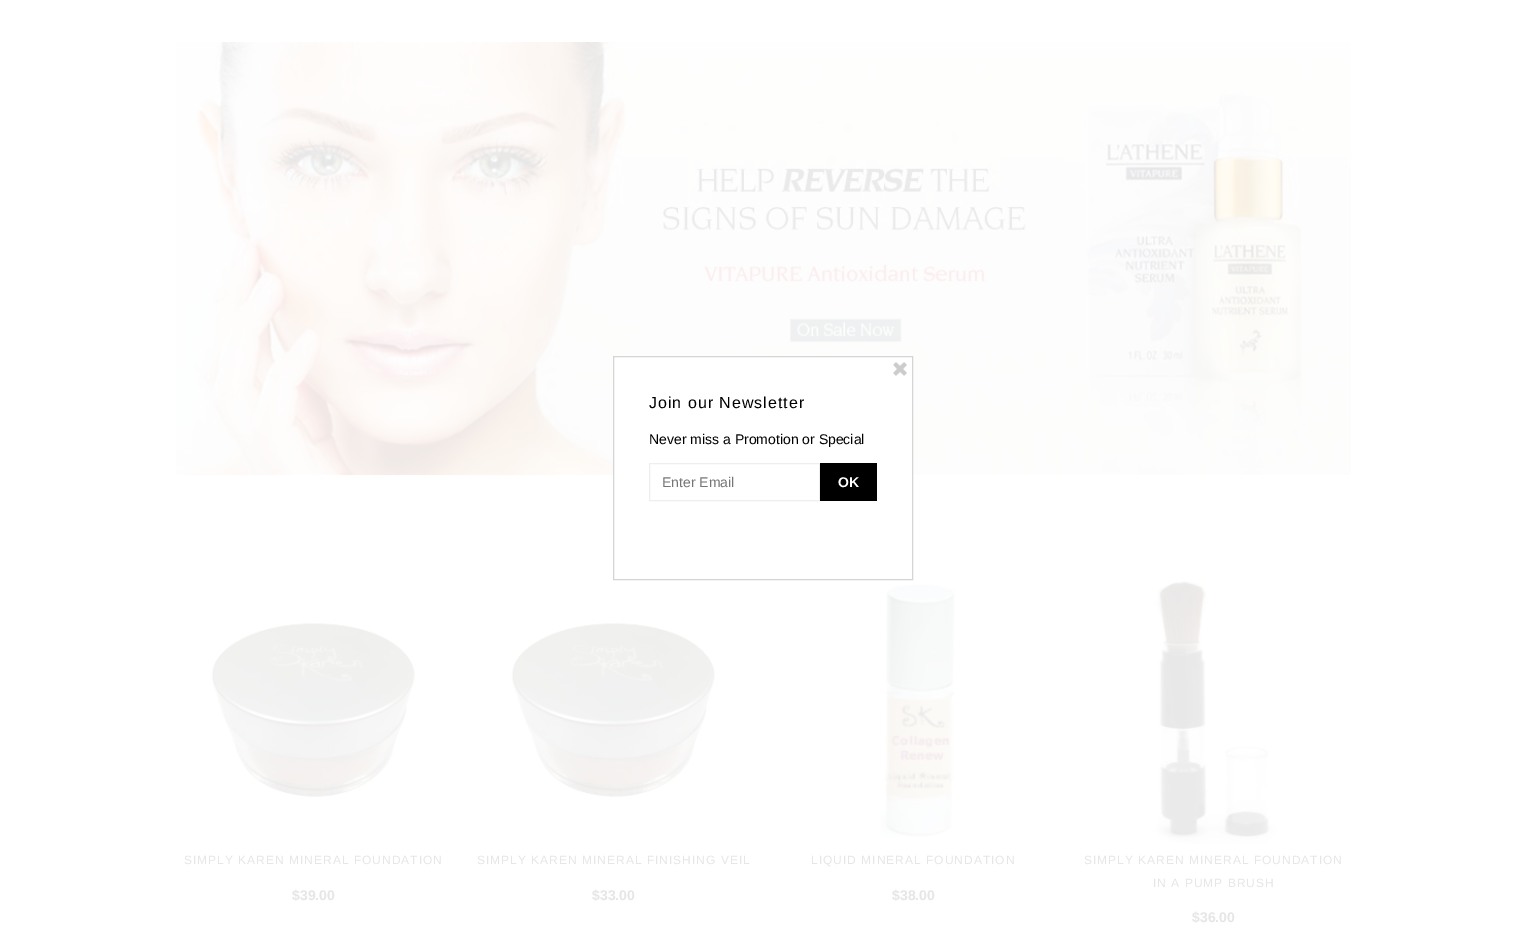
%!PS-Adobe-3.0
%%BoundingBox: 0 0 1527 937
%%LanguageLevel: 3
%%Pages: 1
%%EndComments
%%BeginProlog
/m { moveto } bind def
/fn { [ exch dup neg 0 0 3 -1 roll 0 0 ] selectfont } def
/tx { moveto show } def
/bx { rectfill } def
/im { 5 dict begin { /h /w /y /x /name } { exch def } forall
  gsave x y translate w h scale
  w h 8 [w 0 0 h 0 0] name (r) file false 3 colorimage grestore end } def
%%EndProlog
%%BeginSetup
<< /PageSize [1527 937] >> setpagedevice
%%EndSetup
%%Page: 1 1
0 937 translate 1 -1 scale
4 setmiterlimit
1 setgray
0 0 1527 937 bx
(image1.raw) 176 42 1175 434 im
614 357 298 118 bx
0.835 setgray
613.5 356.5 299 223 rectstroke
(image0.raw) 893 362 14 14 im
/LiberationSans-Regular 16 fn
0 setgray
649 408 m 1 0 (Join our Newsletter) ashow
/LiberationSans-Regular 14 fn
(Never miss a Promotion or Special) 649 444 tx
0.933 setgray
649.5 463.5 170 37 rectstroke
0.459 setgray
(Enter Email) 662 487 tx
0 setgray
820 463 57 38 bx
/LiberationSans-Bold 14 fn
1 setgray
(OK) 838 487 tx
(image2.raw) 211 621 204 178 im
/LiberationSans-Regular 12 fn
0.902 setgray
184 864 m 1 0 (SIMPLY KAREN MINERAL FOUNDATION) ashow
/LiberationSans-Bold 14 fn
($39.00) 292 900 tx
(image2.raw) 511 621 204 178 im
/LiberationSans-Regular 12 fn
477 864 m 1 0 (SIMPLY KAREN MINERAL FINISHING VEIL) ashow
/LiberationSans-Bold 14 fn
($33.00) 592 900 tx
(image3.raw) 879 582 81 257 im
/LiberationSans-Regular 12 fn
811 864 m 1 0 (LIQUID MINERAL FOUNDATION) ashow
/LiberationSans-Bold 14 fn
($38.00) 892 900 tx
(image4.raw) 1153 580 126 265 im
/LiberationSans-Regular 12 fn
1084 864 m 1 0 (SIMPLY KAREN MINERAL FOUNDATION) ashow
1153 887 m 1 0 (IN A PUMP BRUSH) ashow
/LiberationSans-Bold 14 fn
($36.00) 1192 922 tx
showpage
%%EOF
